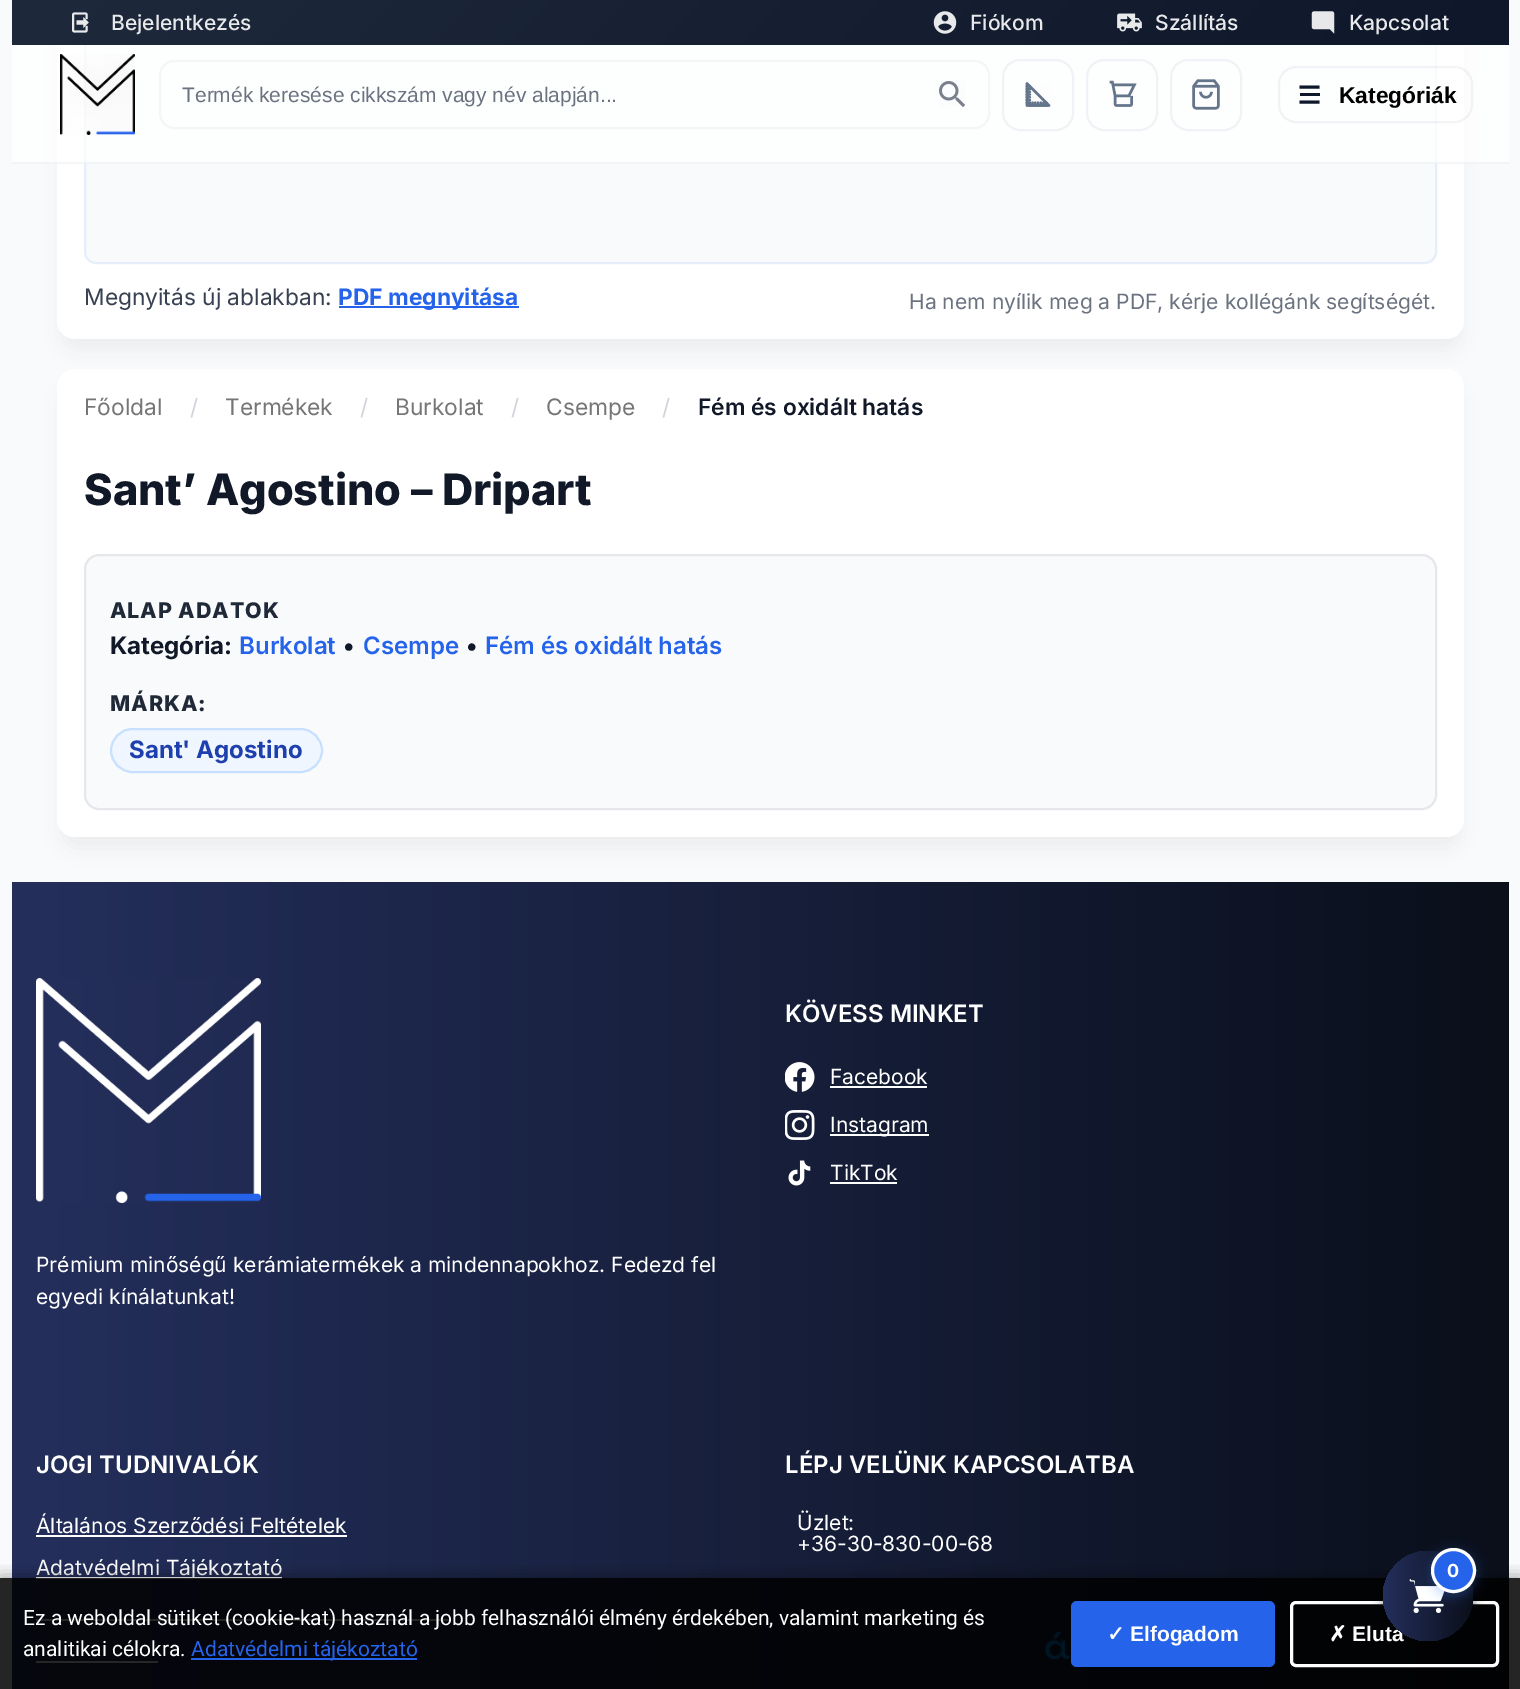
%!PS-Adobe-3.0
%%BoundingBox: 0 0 1520 1689
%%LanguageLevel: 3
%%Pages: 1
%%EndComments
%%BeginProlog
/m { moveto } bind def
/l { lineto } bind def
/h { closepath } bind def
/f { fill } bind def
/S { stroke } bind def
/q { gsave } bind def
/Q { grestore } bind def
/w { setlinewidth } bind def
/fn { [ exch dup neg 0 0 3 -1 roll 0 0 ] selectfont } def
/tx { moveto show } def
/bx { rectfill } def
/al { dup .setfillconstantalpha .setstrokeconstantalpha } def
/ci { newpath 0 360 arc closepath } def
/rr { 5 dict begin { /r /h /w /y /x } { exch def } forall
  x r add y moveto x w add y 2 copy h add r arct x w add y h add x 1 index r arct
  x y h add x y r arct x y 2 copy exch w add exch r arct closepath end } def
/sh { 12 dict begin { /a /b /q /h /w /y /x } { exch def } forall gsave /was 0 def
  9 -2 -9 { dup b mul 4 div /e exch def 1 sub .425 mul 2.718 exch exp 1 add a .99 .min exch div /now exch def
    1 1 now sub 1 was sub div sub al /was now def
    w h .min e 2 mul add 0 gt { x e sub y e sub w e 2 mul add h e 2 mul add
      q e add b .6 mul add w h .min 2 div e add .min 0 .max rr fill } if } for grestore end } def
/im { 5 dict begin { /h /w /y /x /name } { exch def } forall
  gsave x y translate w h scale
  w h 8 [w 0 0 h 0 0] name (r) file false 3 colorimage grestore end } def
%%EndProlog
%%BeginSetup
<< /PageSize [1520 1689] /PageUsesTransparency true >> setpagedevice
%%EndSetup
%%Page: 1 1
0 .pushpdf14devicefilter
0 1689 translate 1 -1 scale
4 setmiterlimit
0.976 0.98 0.984 setrgbcolor
0 0 1520 1689 bx
0 setgray
62 -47 1398 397 14 11 0.06 sh
1 setgray
57 -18 1407 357 18 rr f
0.973 0.98 0.988 setrgbcolor
85 -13 1351 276 11 rr q f Q
0.902 0.933 0.984 setrgbcolor
2 w
S
0.7 al
1 setgray
12 45 1497 119 bx
0.1 al
0.58 0.639 0.722 setrgbcolor
12 162 1497 2 bx
1 al
q 12 0 m 1509 0 l 1509 45 l 12 45 l h clip newpath
<< /ShadingType 2 /ColorSpace /DeviceRGB /Coords [375 -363 1146 408] /Extend [true true] /Function << /FunctionType 2 /Domain [0 1] /C0 [0.118 0.161 0.231] /C1 [0.059 0.09 0.165] /N 1 >> >> shfill Q
(image0.raw) 72 12 17 21 im
/Inter-Medium 21 fn
0.91 0.914 0.922 setrgbcolor
(Bejelentkezés) 111 30 tx
(image1.raw) 933 11 24 23 im
(Fiókom) 970 30 tx
(image2.raw) 1117 13 25 19 im
(Szállítás) 1155 30 tx
(image3.raw) 1311 11 24 23 im
(Kapcsolat) 1349 30 tx
(image4.raw) 60 54 75 81 im
0.957 0.961 0.965 setrgbcolor
160 61 829 67 14 rr S
/LiberationSans-Regular 21 fn
0.42 0.447 0.502 setrgbcolor
(Termék keresése cikkszám vagy név alapján...) 182 102 tx
(image5.raw) 939 81 26 26 im
0.941 0.953 0.965 setrgbcolor
1003 60 70 70 17 rr S
(image6.raw) 1025 82 26 25 im
1087 60 70 70 17 rr S
(image7.raw) 1109 80 28 27 im
1171 60 70 70 17 rr S
(image8.raw) 1192 79 28 31 im
0.12 al
0.58 0.639 0.722 setrgbcolor
1279 67 193 55 17 rr S
1 al
0.059 0.09 0.165 setrgbcolor
3.1 w
1299.5 87 m 1319.5 87 l S
1300 93 20 3 bx
1299.5 102 m 1319.5 102 l S
/LiberationSans-Bold 22.75 fn
0 setgray
(Kategóriák) 1339 103 tx
/Inter-Regular 22.75 fn
0.216 0.255 0.318 setrgbcolor
(Megnyitás új ablakban:) 84 305 tx
0.145 0.388 0.922 setrgbcolor
339 306 180 2 bx
/Inter-Bold 22.75 fn
(PDF megnyitása) 338 305 tx
/Inter-Regular 21.1 fn
0.42 0.447 0.502 setrgbcolor
(Ha nem nyílik meg a PDF, kérje kollégánk segítségét.) 909 309 tx
0 setgray
62 389 1398 459 14 11 0.06 sh
1 setgray
57 369 1407 468 18 rr f
/Inter-Regular 22.75 fn
0.463 setgray
(Főoldal) 84 415 tx
0.82 0.835 0.859 setrgbcolor
(/) 190 415 tx
0.463 setgray
(Termékek) 225 415 tx
0.82 0.835 0.859 setrgbcolor
(/) 360 415 tx
0.463 setgray
(Burkolat) 395 415 tx
0.82 0.835 0.859 setrgbcolor
(/) 511 415 tx
0.463 setgray
(Csempe) 546 415 tx
0.82 0.835 0.859 setrgbcolor
(/) 662 415 tx
/Inter-SemiBold 22.75 fn
0.067 0.094 0.153 setrgbcolor
(Fém és oxidált hatás) 698 415 tx
/Inter-ExtraBold 43.25 fn
(Sant’ Agostino – Dripart) 84 505 tx
0.973 0.98 0.988 setrgbcolor
85 555 1351 254 14 rr q f Q
0.898 0.906 0.922 setrgbcolor
2 w
S
/Inter-ExtraBold 21.5 fn
0.122 0.161 0.216 setrgbcolor
110 618 m 0.9 0 (ALAP ADATOK) ashow
/Inter-Bold 24 fn
0.067 0.094 0.153 setrgbcolor
(Kategória:) 110 654 tx
/Inter-SemiBold 24 fn
0.145 0.388 0.922 setrgbcolor
(Burkolat) 239 654 tx
/Inter-Regular 24 fn
0.067 0.094 0.153 setrgbcolor
(•) 342 654 tx
/Inter-SemiBold 24 fn
0.145 0.388 0.922 setrgbcolor
(Csempe) 363 654 tx
/Inter-Regular 24 fn
0.067 0.094 0.153 setrgbcolor
(•) 465 654 tx
/Inter-SemiBold 24 fn
0.145 0.388 0.922 setrgbcolor
(Fém és oxidált hatás) 485 654 tx
/Inter-ExtraBold 21.5 fn
0.122 0.161 0.216 setrgbcolor
110 711 m 0.9 0 (MÁRKA:) ashow
0.937 0.965 1 setrgbcolor
111 729 211 43 21.5 rr q f Q
0.78 0.878 1 setrgbcolor
S
/Inter-Bold 24 fn
0.118 0.251 0.686 setrgbcolor
(Sant' Agostino) 129 758 tx
q 12 882 m 1509 882 l 1509 1689 l 12 1689 l h clip newpath
<< /ShadingType 2 /ColorSpace /DeviceRGB /Coords [12 1478 1509 1478] /Extend [true true] /Function << /FunctionType 2 /Domain [0 1] /C0 [0.141 0.184 0.361] /C1 [0.039 0.059 0.102] /N 1 >> >> shfill Q
/Inter-SemiBold 24 fn
1 setgray
(KÖVESS MINKET) 785 1022 tx
(image9.raw) 785 1062 30 30 im
/Inter-Regular 21 fn
(Facebook) 830 1084 tx
830 1086 97 2 bx
(image10.raw) 785 1110 30 30 im
830 1134 99 2 bx
(Instagram) 830 1132 tx
(image11.raw) 788 1160 23 26 im
(TikTok) 830 1180 tx
830 1182 67 2 bx
(image12.raw) 36 978 225 225 im
(Prémium minőségű kerámiatermékek a mindennapokhoz. Fedezd fel) 36 1272 tx
(egyedi kínálatunkat!) 36 1304 tx
/Inter-SemiBold 24 fn
(JOGI TUDNIVALÓK) 36 1473 tx
/Inter-Regular 21 fn
(Általános Szerződési Feltételek) 36 1533 tx
36 1535 311 2 bx
36 1577 246 2 bx
(Adatvédelmi Tájékoztató) 36 1575 tx
36 1619 413 2 bx
36 1661 122 2 bx
/Inter-SemiBold 24 fn
(LÉPJ VELÜNK KAPCSOLATBA) 785 1473 tx
/Inter-Regular 21 fn
(Üzlet:) 797 1530 tx
(+36-30-830-00-68) 797 1551 tx
(image13.raw) 1045 1632 26 28 im
q
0 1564 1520 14 rectclip
0 setgray
0 1575 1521 111 0 7.5 0.3 sh
Q
0.85 al
0 setgray
0 1578 1520 111 bx
1 al
1 setgray
3 w
1291.5 1602.5 206 63 4.5 rr S
0 setgray
1385 1559 87 87 43.5 4.5 0.2 sh
1385 1562 87 87 43.5 6 0.5 sh
/LiberationSans-Bold 21 fn
1 setgray
(Eluta) 1352 1641 tx
q 1428 1596 45 ci clip newpath
<< /ShadingType 2 /ColorSpace /DeviceRGB /Coords [1383 1596 1473 1596] /Extend [true true] /Function << /FunctionType 2 /Domain [0 1] /C0 [0.141 0.184 0.361] /C1 [0.039 0.059 0.102] /N 1 >> >> shfill Q
(image14.raw) 1409 1579 36 34 im
0.231 0.51 0.965 setrgbcolor
1431 1551 45 45 22.5 6 0.3 sh
0.145 0.388 0.922 setrgbcolor
1453.5 1570.5 21 ci q f Q
1 setgray
S
/Inter-Bold 18 fn
(0) 1447 1577 tx
/Roboto-Regular 21 fn
(Ez a weboldal sütiket \(cookie-kat\) használ a jobb felhasználói élmény érdekében, valamint marketing és) 23 1625 tx
(analitikai célokra.) 23 1656 tx
0.145 0.388 0.922 setrgbcolor
191 1658 226 2 bx
(Adatvédelmi tájékoztató) 191 1656 tx
1071 1601 204 66 6 rr f
/DejaVuSans-Bold 21 fn
1 setgray
(✓) 1107 1641 tx
/LiberationSans-Bold 21 fn
(Elfogadom) 1130 1641 tx
/DejaVuSans-Bold 21 fn
(✗) 1329 1641 tx
.poppdf14devicefilter showpage
%%EOF
